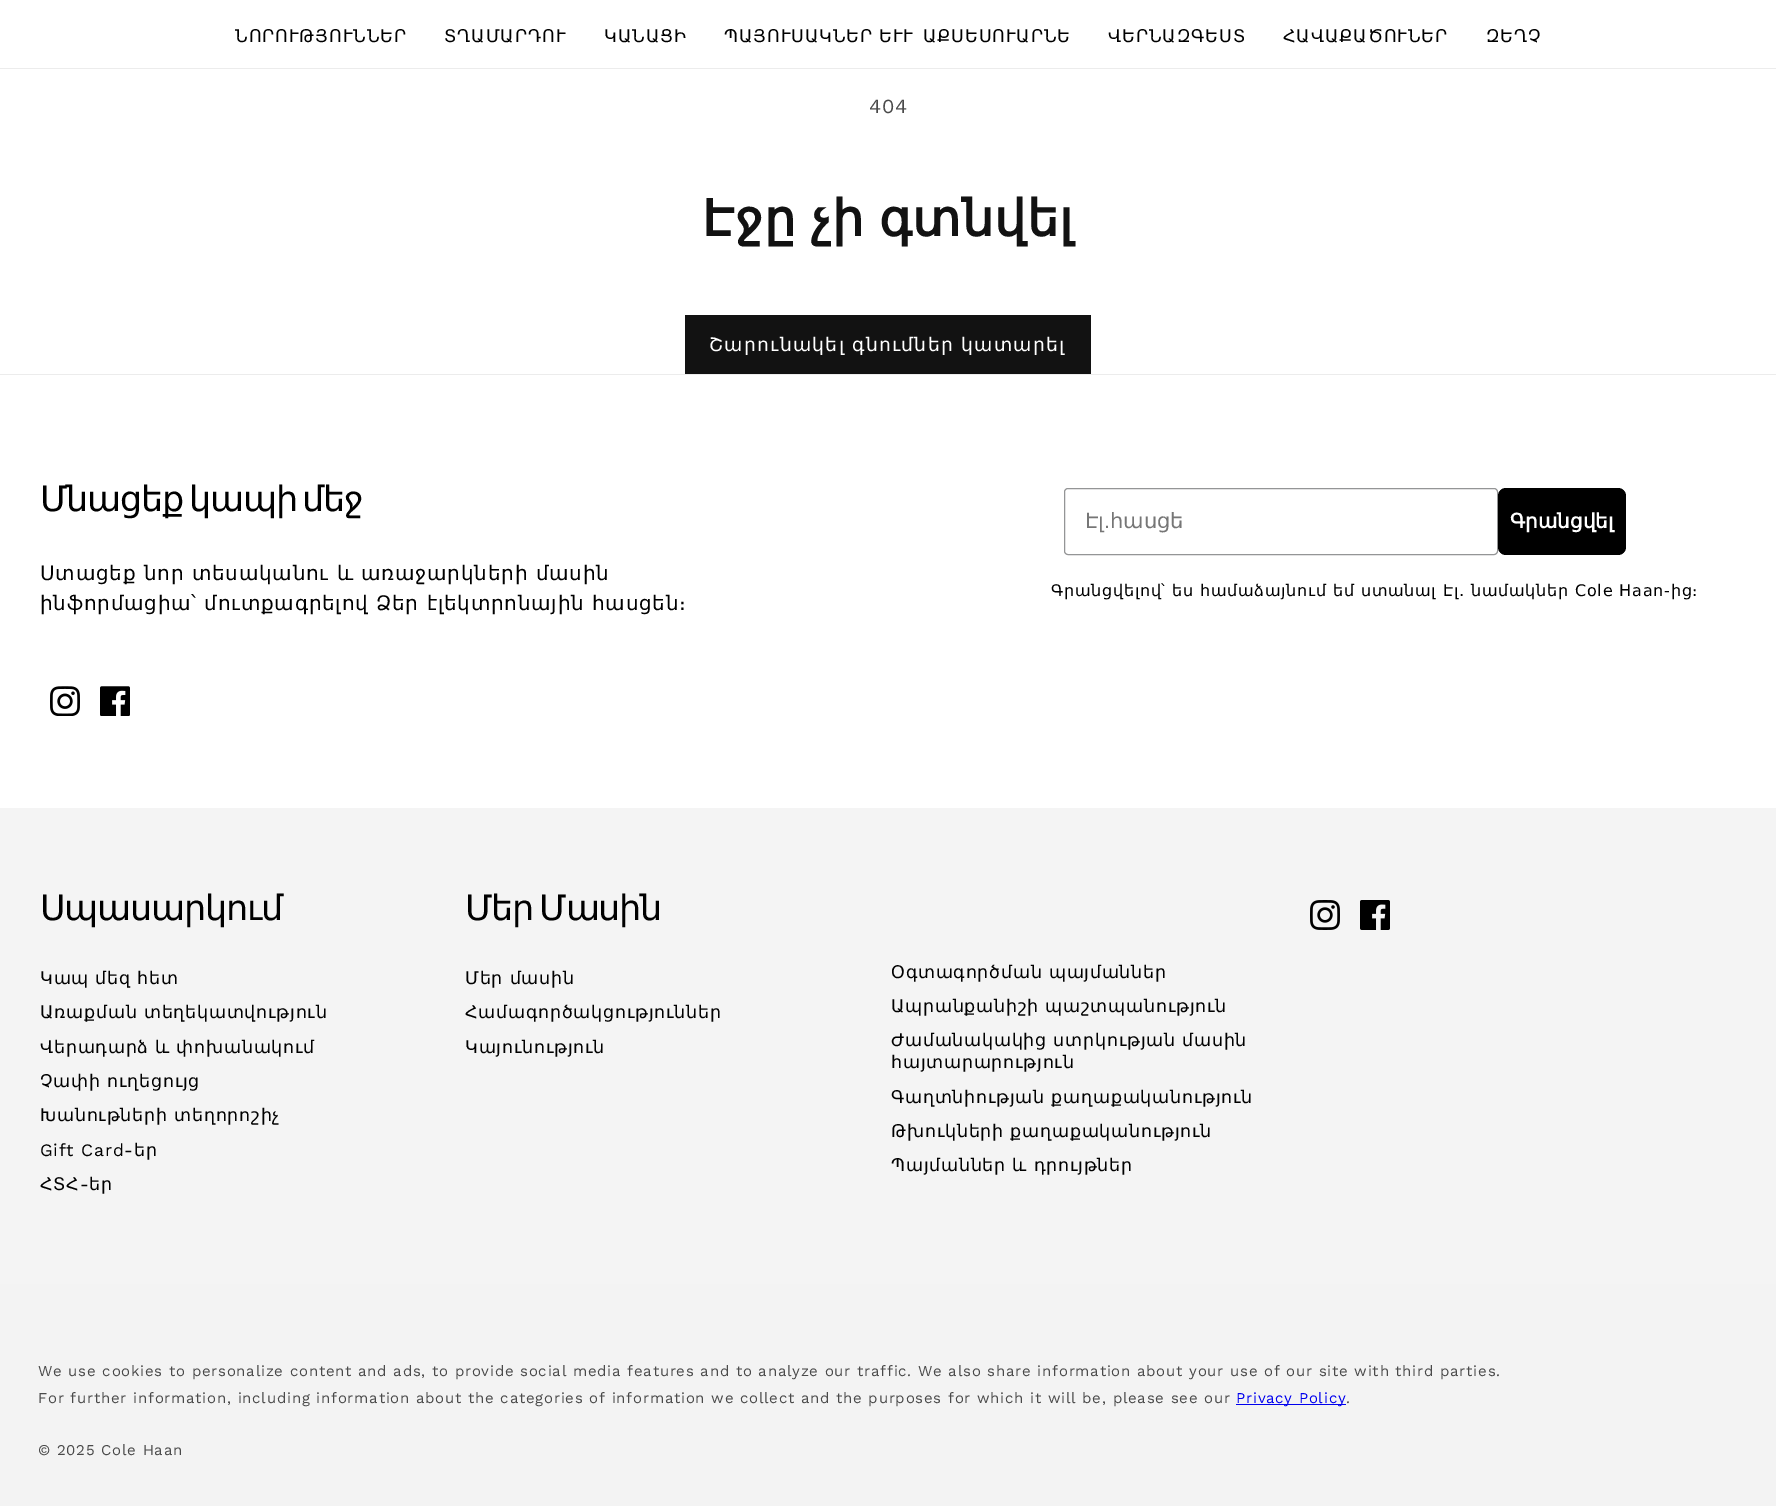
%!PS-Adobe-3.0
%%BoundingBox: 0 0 1776 1506
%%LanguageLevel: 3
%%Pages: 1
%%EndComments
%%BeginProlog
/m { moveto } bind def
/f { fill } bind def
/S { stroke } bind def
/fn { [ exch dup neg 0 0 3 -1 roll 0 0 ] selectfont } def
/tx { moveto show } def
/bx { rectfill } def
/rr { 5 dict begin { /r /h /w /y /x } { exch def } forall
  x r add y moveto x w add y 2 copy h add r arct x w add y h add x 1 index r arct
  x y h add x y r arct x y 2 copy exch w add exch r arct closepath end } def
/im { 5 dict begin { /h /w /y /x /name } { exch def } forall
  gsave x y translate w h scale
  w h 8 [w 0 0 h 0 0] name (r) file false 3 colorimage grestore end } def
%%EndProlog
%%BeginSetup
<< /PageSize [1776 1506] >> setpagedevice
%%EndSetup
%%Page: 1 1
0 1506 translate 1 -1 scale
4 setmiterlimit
1 setgray
0 0 1776 1506 bx
0.925 setgray
0 68 1776 1 bx
/DejaVuSans-Regular 17.5 fn
0 setgray
235 42 m 0.9 0 (ՆՈՐՈՒԹՅՈՒՆՆԵՐ) ashow
444 42 m 0.9 0 (ՏՂԱՄԱՐԴՈՒ) ashow
604 42 m 0.9 0 (ԿԱՆԱՑԻ) ashow
724 42 m 0.9 0 (ՊԱՅՈՒՍԱԿՆԵՐ ԵՒ) ashow
903 42 m 3 0 32 0.9 0 (Ւ ԱՔՍԵՍՈՒԱՐՆԵ) awidthshow
1108 42 m 0.9 0 (ՎԵՐՆԱԶԳԵՍՏ) ashow
1283 42 m 0.9 0 (ՀԱՎԱՔԱԾՈՒՆԵՐ) ashow
1486 42 m 0.9 0 (ԶԵՂՉ) ashow
/WorkSans-Regular 20 fn
0.29 setgray
869 113 m 0.75 0 (404) ashow
/DejaVuSans-Bold 50 fn
0.071 setgray
702 236 m -2 0 32 0.75 0 (Էջը չի գտնվել) awidthshow
685 315 406 59 bx
/DejaVuSans-Regular 18.75 fn
1 setgray
709 351 m 1.25 0 (Շարունակել գնումներ կատարել) ashow
0.925 setgray
0 374 1776 1 bx
/DejaVuSans-Regular 35 fn
0 setgray
40 511 m -4 0 32 -1.25 0 (Մնացեք կապի մեջ) awidthshow
/DejaVuSans-Regular 20 fn
40 580 m 0.5 0 32 0.75 0 (Ստացեք նոր տեսականու և առաջարկների մասին) awidthshow
40 610 m 0.5 0 32 0.75 0 (ինֆորմացիա՝ մուտքագրելով Ձեր էլեկտրոնային հասցեն։) awidthshow
0.58 0.584 0.588 setrgbcolor
1064.5 488.5 433 66 3.5 rr S
/DejaVuSans-Regular 21 fn
0.463 setgray
(Էլ) 1085 528 tx
/LiberationSans-Regular 21 fn
(.) 1104 528 tx
/DejaVuSans-Regular 21 fn
(հասցե) 1110 528 tx
0 setgray
1498 488 128 67 8 rr f
/DejaVuSans-Bold 20 fn
1 setgray
(Գրանցվել) 1510 528 tx
/DejaVuSans-Regular 16 fn
0 setgray
1051 596 m 0.25 0 32 0.75 0 (Գրանցվելով՝ ես համաձայնում եմ ստանալ Էլ․ նամակներ Cole Haan-ից։) awidthshow
(image0.raw) 50 686 30 30 im
(image1.raw) 100 686 30 30 im
0.957 setgray
0 808 1776 476 bx
/DejaVuSans-Regular 35 fn
0 setgray
40 920 m -1.25 0 (Սպասարկում) ashow
/DejaVuSans-Regular 17.5 fn
40 984 m 0.75 0 (Կապ մեզ հետ) ashow
40 1018 m 0.75 0 (Առաքման տեղեկատվություն) ashow
40 1053 m 0.75 0 (Վերադարձ և փոխանակում) ashow
40 1087 m 0.75 0 (Չափի ուղեցույց) ashow
40 1121 m 0.75 0 (Խանութների տեղորոշիչ) ashow
/WorkSans-Regular 17.5 fn
40 1156 m 0.75 0 (Gift Card-) ashow
/DejaVuSans-Regular 17.5 fn
134 1156 m 0.75 0 (եր) ashow
40 1190 m 0.75 0 (ՀՏՀ) ashow
/WorkSans-Regular 17.5 fn
80 1190 m 0.75 0 (-) ashow
/DejaVuSans-Regular 17.5 fn
89 1190 m 0.75 0 (եր) ashow
/DejaVuSans-Regular 35 fn
465 920 m -4 0 32 -1.25 0 (Մեր Մասին) awidthshow
/DejaVuSans-Regular 17.5 fn
465 984 m 0.75 0 (Մեր մասին) ashow
465 1018 m 0.75 0 (Համագործակցություններ) ashow
465 1053 m 0.75 0 (Կայունություն) ashow
(image2.raw) 1310 900 30 30 im
(image3.raw) 1360 900 30 30 im
891 978 m 0.75 0 (Օգտագործման պայմաններ) ashow
891 1012 m 0.75 0 (Ապրանքանիշի պաշտպանություն) ashow
891 1046 m 0.75 0 (Ժամանակակից ստրկության մասին) ashow
891 1068 m 0.75 0 (հայտարարություն) ashow
891 1103 m 0.75 0 (Գաղտնիության քաղաքականություն) ashow
891 1137 m 0.75 0 (Թխուկների քաղաքականություն) ashow
891 1171 m 0.75 0 (Պայմաններ և դրույթներ) ashow
0.953 setgray
0 1284 1776 222 bx
/WorkSans-Regular 15 fn
0.29 setgray
38 1376 m 0.75 0 (We use cookies to personalize content and ads, to provide social media features and to analyze our traffic. We also share information about your use of our site with third parties.) ashow
38 1403 m 0.75 0 (For further information, including information about the categories of information we collect and the purposes for which it will be, please see our) ashow
0 0 0.933 setrgbcolor
1236 1404 110 1 bx
1236 1403 m 0.75 0 (Privacy Policy) ashow
0.29 setgray
1346 1403 m 0.75 0 (.) ashow
38 1455 m 0.75 0 (© 2025 Cole Haan) ashow
showpage
%%EOF
